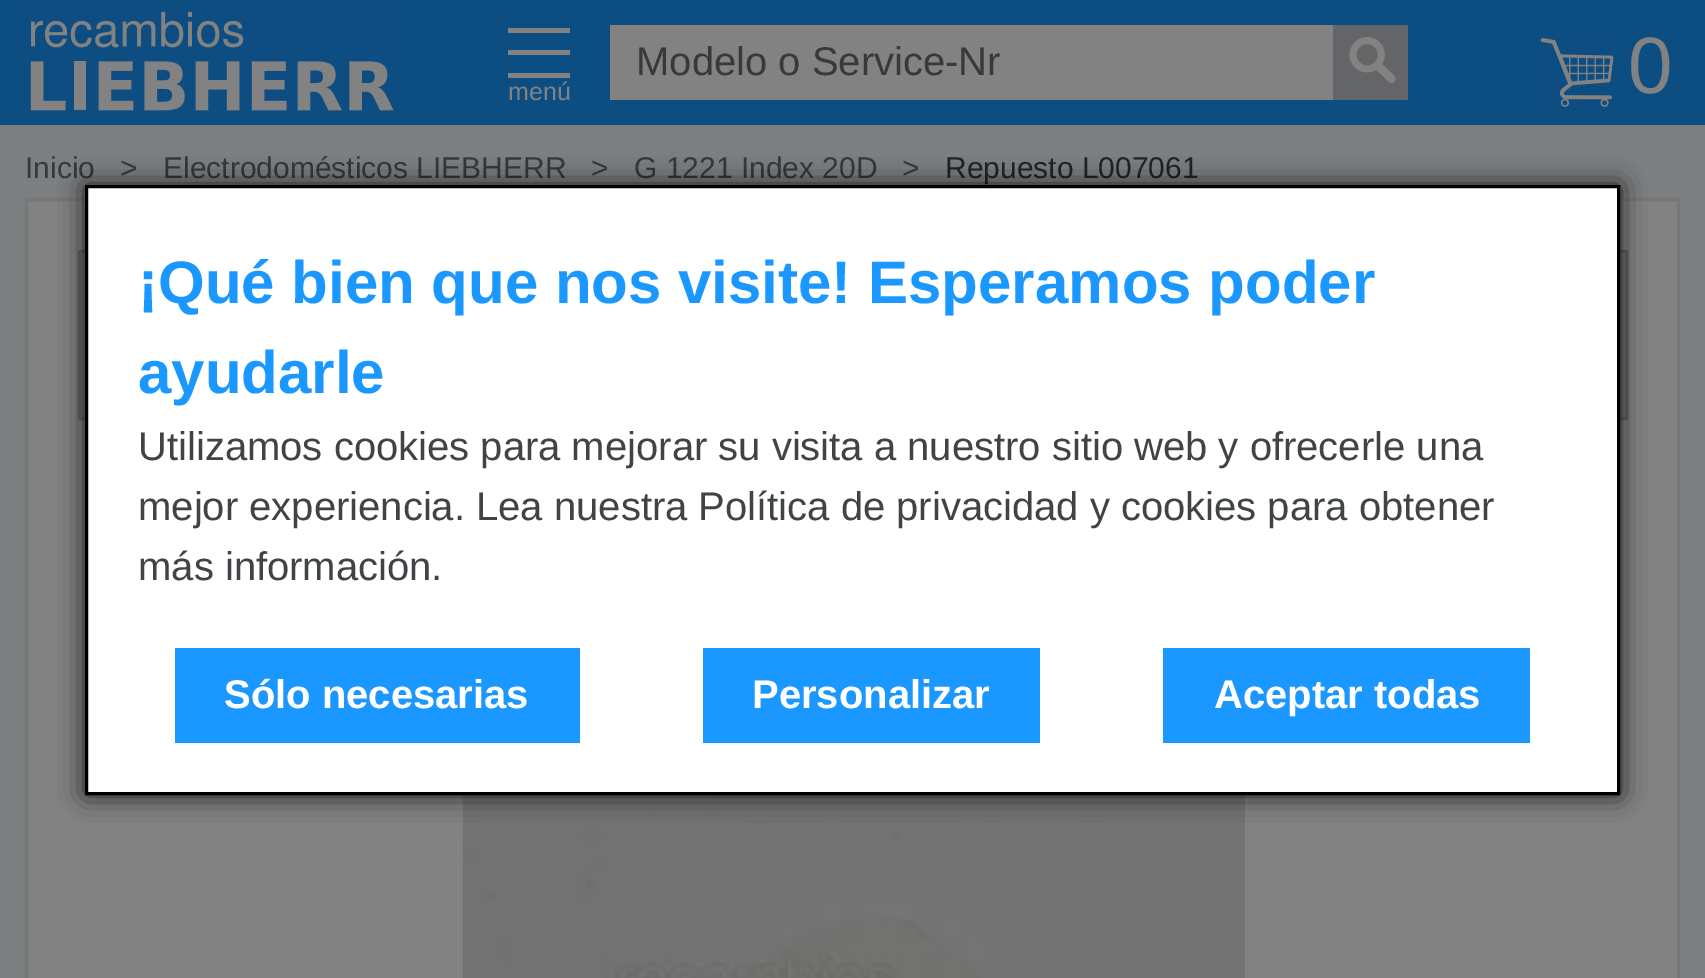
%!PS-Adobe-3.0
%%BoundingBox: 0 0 1705 978
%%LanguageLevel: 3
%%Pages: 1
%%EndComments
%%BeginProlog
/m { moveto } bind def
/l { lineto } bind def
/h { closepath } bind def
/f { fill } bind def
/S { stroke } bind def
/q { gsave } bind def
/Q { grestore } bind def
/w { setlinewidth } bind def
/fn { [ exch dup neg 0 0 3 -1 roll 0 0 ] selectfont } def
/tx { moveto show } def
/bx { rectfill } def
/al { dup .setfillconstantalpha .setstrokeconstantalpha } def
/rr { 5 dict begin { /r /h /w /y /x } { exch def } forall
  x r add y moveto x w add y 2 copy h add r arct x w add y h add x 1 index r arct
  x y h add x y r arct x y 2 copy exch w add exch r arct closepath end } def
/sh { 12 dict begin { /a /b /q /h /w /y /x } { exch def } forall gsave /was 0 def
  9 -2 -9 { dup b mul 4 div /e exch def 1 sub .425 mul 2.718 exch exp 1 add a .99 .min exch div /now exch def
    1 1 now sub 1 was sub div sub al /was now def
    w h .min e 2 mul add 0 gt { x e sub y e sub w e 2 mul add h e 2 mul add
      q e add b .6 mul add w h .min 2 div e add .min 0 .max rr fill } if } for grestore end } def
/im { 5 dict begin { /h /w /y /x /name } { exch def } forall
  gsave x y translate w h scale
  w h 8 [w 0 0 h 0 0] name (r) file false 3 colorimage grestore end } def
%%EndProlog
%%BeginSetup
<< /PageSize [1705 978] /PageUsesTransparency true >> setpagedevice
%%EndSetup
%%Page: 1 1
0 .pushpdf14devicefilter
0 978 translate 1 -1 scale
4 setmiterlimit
0.486 0.494 0.502 setrgbcolor
0 0 1705 978 bx
0.051 0.306 0.51 setrgbcolor
0 0 1705 125 bx
(image0.raw) 30 11 364 100 im
0.51 setgray
610 25 723 75 bx
/LiberationSans-Regular 40 fn
0.216 0.224 0.231 setrgbcolor
(Modelo o Service-Nr) 636 75 tx
0.388 0.396 0.408 setrgbcolor
1333 25 75 75 bx
(image1.raw) 1349 37 47 46 im
0.51 setgray
508 28 62 5 bx
508 50 62 5 bx
508 73 62 5 bx
/LiberationSans-Regular 25 fn
(menú) 508 100 tx
(image2.raw) 1540 38 74 69 im
/LiberationSans-Regular 80 fn
(0) 1628 93 tx
/LiberationSans-Regular 30 fn
0.216 0.224 0.231 setrgbcolor
(Inicio) 25 178 tx
(>) 120 178 tx
(Electrodomésticos LIEBHERR) 163 178 tx
(>) 591 178 tx
(G 1221 Index 20D) 634 178 tx
(>) 902 178 tx
0.129 0.137 0.141 setrgbcolor
(Repuesto L007061) 945 178 tx
0.51 setgray
26.5 199.5 m 1678.5 199.5 l 1678.5 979.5 l 26.5 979.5 l h q f Q
0.459 0.471 0.478 setrgbcolor
3 w
S
79.5 251.5 m 1626.5 251.5 l 1626.5 418.5 l 79.5 418.5 l h q f Q
0.388 0.396 0.408 setrgbcolor
S
(image3.raw) 462 795 783 183 im
0 setgray
85 185 1535 610 0 12.5 0.8 sh
1 setgray
86.5 186.5 m 1618.5 186.5 l 1618.5 793.5 l 86.5 793.5 l h q f Q
0 setgray
S
/LiberationSans-Bold 60 fn
0.102 0.596 1 setrgbcolor
(¡Qué bien que nos visite! Esperamos poder) 138 303 tx
(ayudarle) 138 393 tx
/LiberationSans-Regular 40 fn
0.251 0.267 0.275 setrgbcolor
(Utilizamos cookies para mejorar su visita a nuestro sitio web y ofrecerle una) 138 460 tx
(mejor experiencia. Lea nuestra Política de privacidad y cookies para obtener) 138 520 tx
(más información.) 138 580 tx
0.102 0.596 1 setrgbcolor
175 648 405 95 bx
/LiberationSans-Bold 40 fn
1 setgray
(Sólo necesarias) 224 708 tx
0.102 0.596 1 setrgbcolor
703 648 337 95 bx
1 setgray
(Personalizar) 752 708 tx
0.102 0.596 1 setrgbcolor
1163 648 367 95 bx
1 setgray
(Aceptar todas) 1214 708 tx
.poppdf14devicefilter showpage
%%EOF
